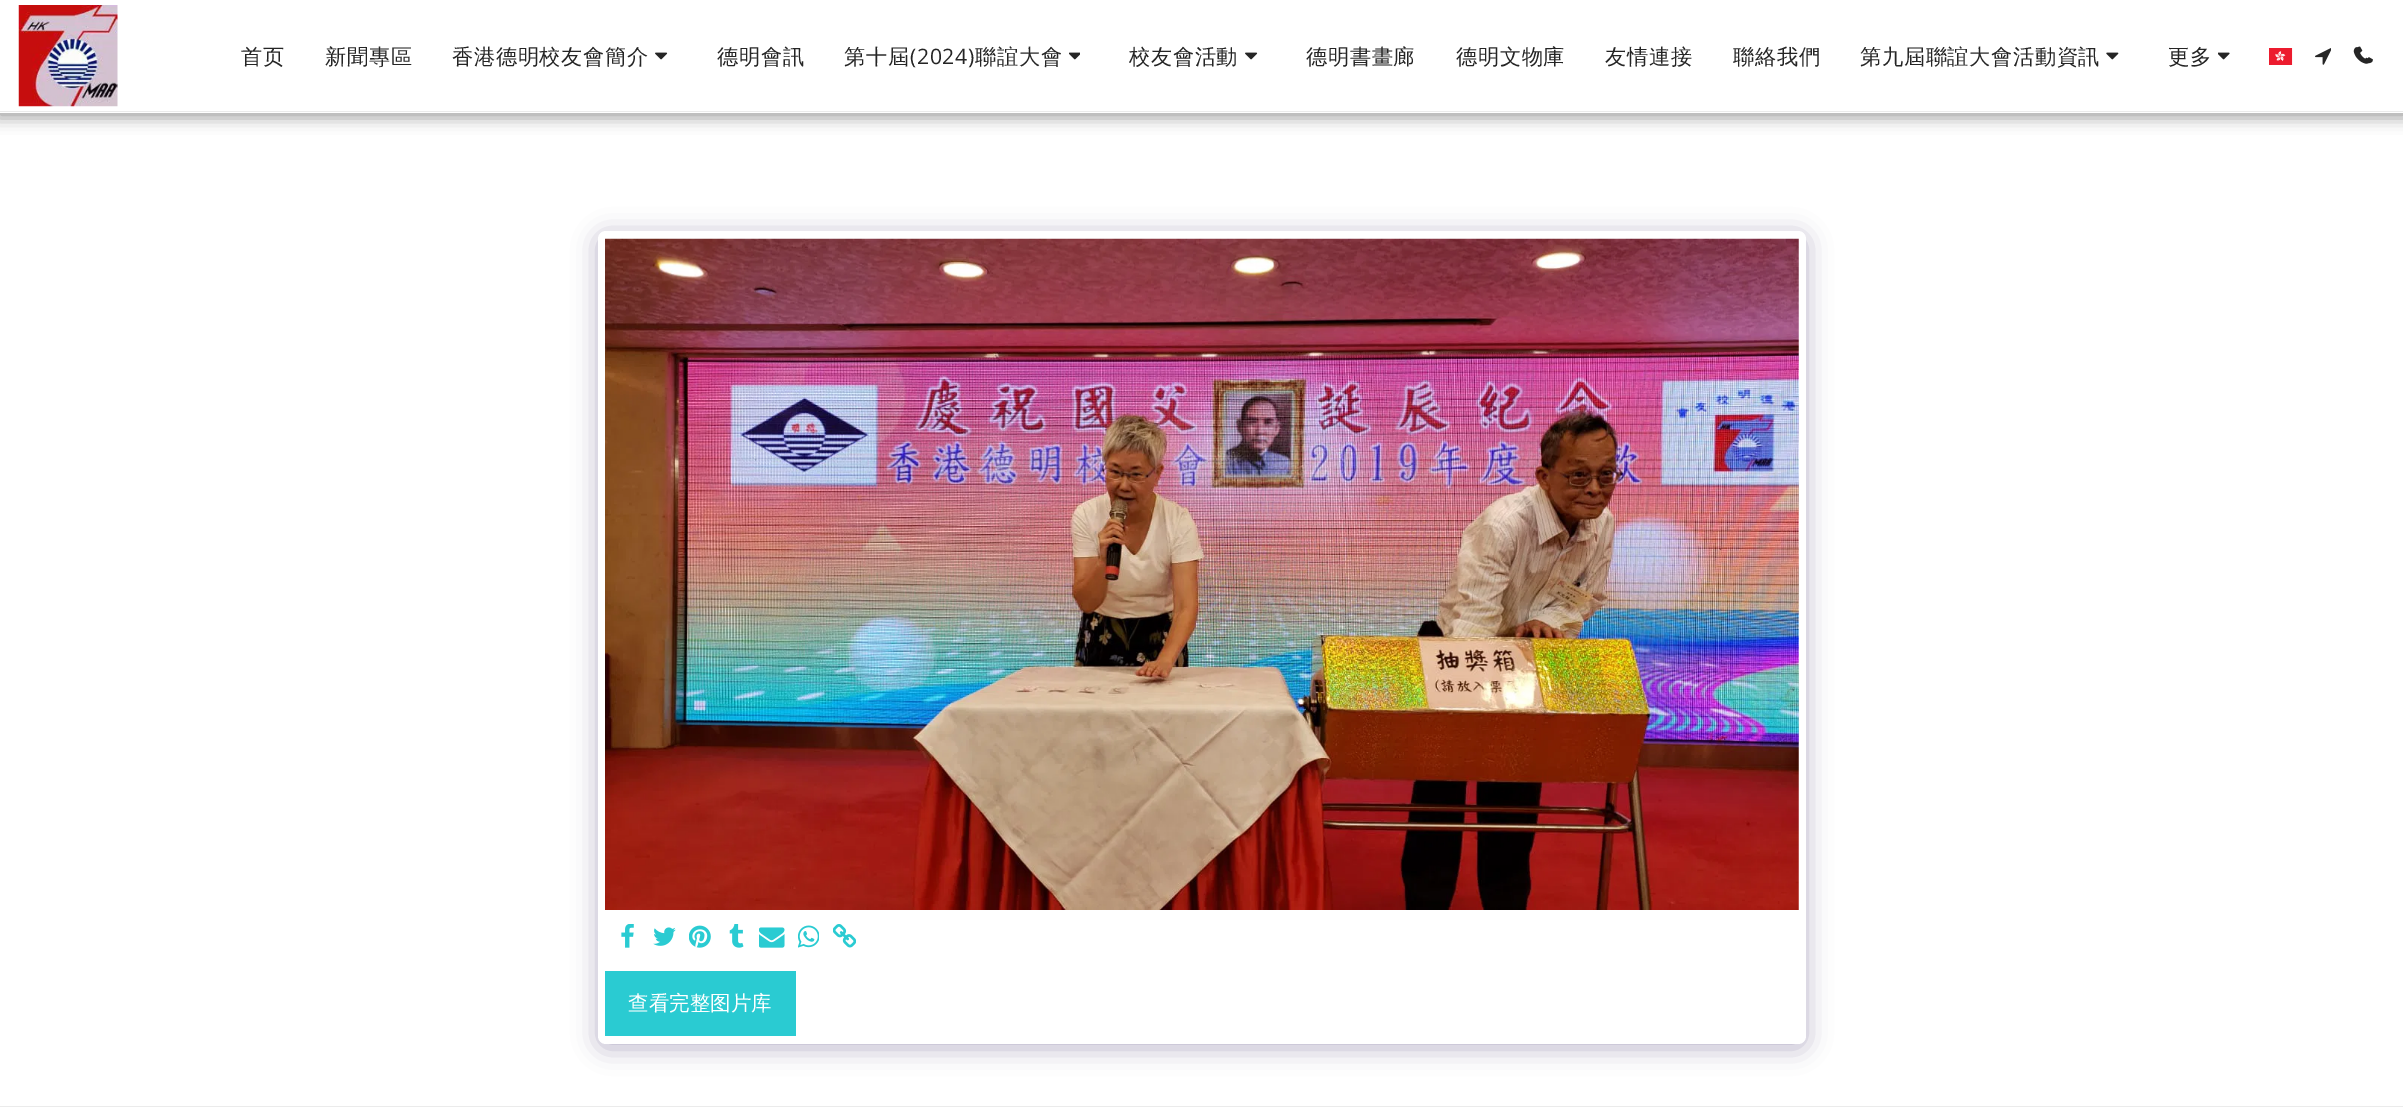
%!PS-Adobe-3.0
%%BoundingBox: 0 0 2403 1119
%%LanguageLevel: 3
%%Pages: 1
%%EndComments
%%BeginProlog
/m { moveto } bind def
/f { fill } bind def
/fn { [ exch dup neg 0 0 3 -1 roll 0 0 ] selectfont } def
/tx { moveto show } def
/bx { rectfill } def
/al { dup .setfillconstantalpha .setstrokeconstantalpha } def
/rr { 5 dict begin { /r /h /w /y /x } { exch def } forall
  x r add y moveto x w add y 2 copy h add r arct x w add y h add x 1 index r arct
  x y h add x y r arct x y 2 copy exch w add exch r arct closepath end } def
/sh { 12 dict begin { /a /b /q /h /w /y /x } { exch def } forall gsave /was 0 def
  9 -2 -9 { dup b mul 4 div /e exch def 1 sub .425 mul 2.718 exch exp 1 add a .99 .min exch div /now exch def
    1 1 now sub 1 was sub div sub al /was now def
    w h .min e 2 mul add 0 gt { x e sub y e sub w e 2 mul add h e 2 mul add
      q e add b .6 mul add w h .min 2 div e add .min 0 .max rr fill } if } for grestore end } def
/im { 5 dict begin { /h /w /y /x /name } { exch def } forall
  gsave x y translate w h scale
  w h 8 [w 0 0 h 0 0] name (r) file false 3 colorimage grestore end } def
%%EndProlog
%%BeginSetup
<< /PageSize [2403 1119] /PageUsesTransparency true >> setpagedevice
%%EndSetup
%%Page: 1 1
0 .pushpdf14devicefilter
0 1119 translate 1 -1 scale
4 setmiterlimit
1 setgray
0 0 2403 1119 bx
0 setgray
-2 0 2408 118 0 7.5 0.35 sh
1 setgray
0 0 2403 113 bx
0.922 setgray
0 111 2403 1 bx
(image0.raw) 18 5 100 102 im
/WenQuanYiZenHei-Medium 21.25 fn
0.145 setgray
241 64 m 0.6 0 (首页) ashow
325 64 m 0.6 0 (新聞專區) ashow
452 64 m 0.6 0 (香港德明校友會簡介) ashow
(image1.raw) 655 52 13 8 im
717 64 m 0.6 0 (德明會訊) ashow
844 64 m 0.6 0 (第十屆) ashow
/OpenSans-Regular 21.25 fn
910 64 m 0.6 0 (\(2024\)) ashow
/WenQuanYiZenHei-Medium 21.25 fn
975 64 m 0.6 0 (聯誼大會) ashow
(image2.raw) 1069 52 11 8 im
1129 64 m 0.6 0 (校友會活動) ashow
(image1.raw) 1245 52 13 8 im
1306 64 m 0.6 0 (德明書畫廊) ashow
1456 64 m 0.6 0 (德明文物庫) ashow
1605 64 m 0.6 0 (友情連接) ashow
1733 64 m 0.6 0 (聯絡我們) ashow
1860 64 m 0.6 0 (第九屆聯誼大會活動資訊) ashow
(image3.raw) 2106 52 13 8 im
2168 64 m 0.6 0 (更多) ashow
(image4.raw) 2218 52 12 8 im
(image5.raw) 2269 48 24 17 im
(image6.raw) 2315 48 16 17 im
(image7.raw) 2357 46 16 18 im
(image8.raw) 2353 47 16 17 im
0.302 0.247 0.478 setrgbcolor
598 235 1208 813 8 12.5 0.4 sh
1 setgray
598 231 1208 813 8 rr f
(image9.raw) 605 238 1194 672 im
(image10.raw) 621 924 13 24 im
(image11.raw) 653 927 23 19 im
(image12.raw) 689 925 22 23 im
(image13.raw) 729 924 15 24 im
(image14.raw) 759 927 26 21 im
(image15.raw) 798 925 21 23 im
(image16.raw) 833 924 23 24 im
0.165 0.796 0.824 setrgbcolor
605 971 191 65 bx
/WenQuanYiZenHei-Medium 20.5 fn
1 setgray
(查看完整图片库) 628 1010 tx
0.922 setgray
0 1106 2403 1 bx
.poppdf14devicefilter showpage
%%EOF
